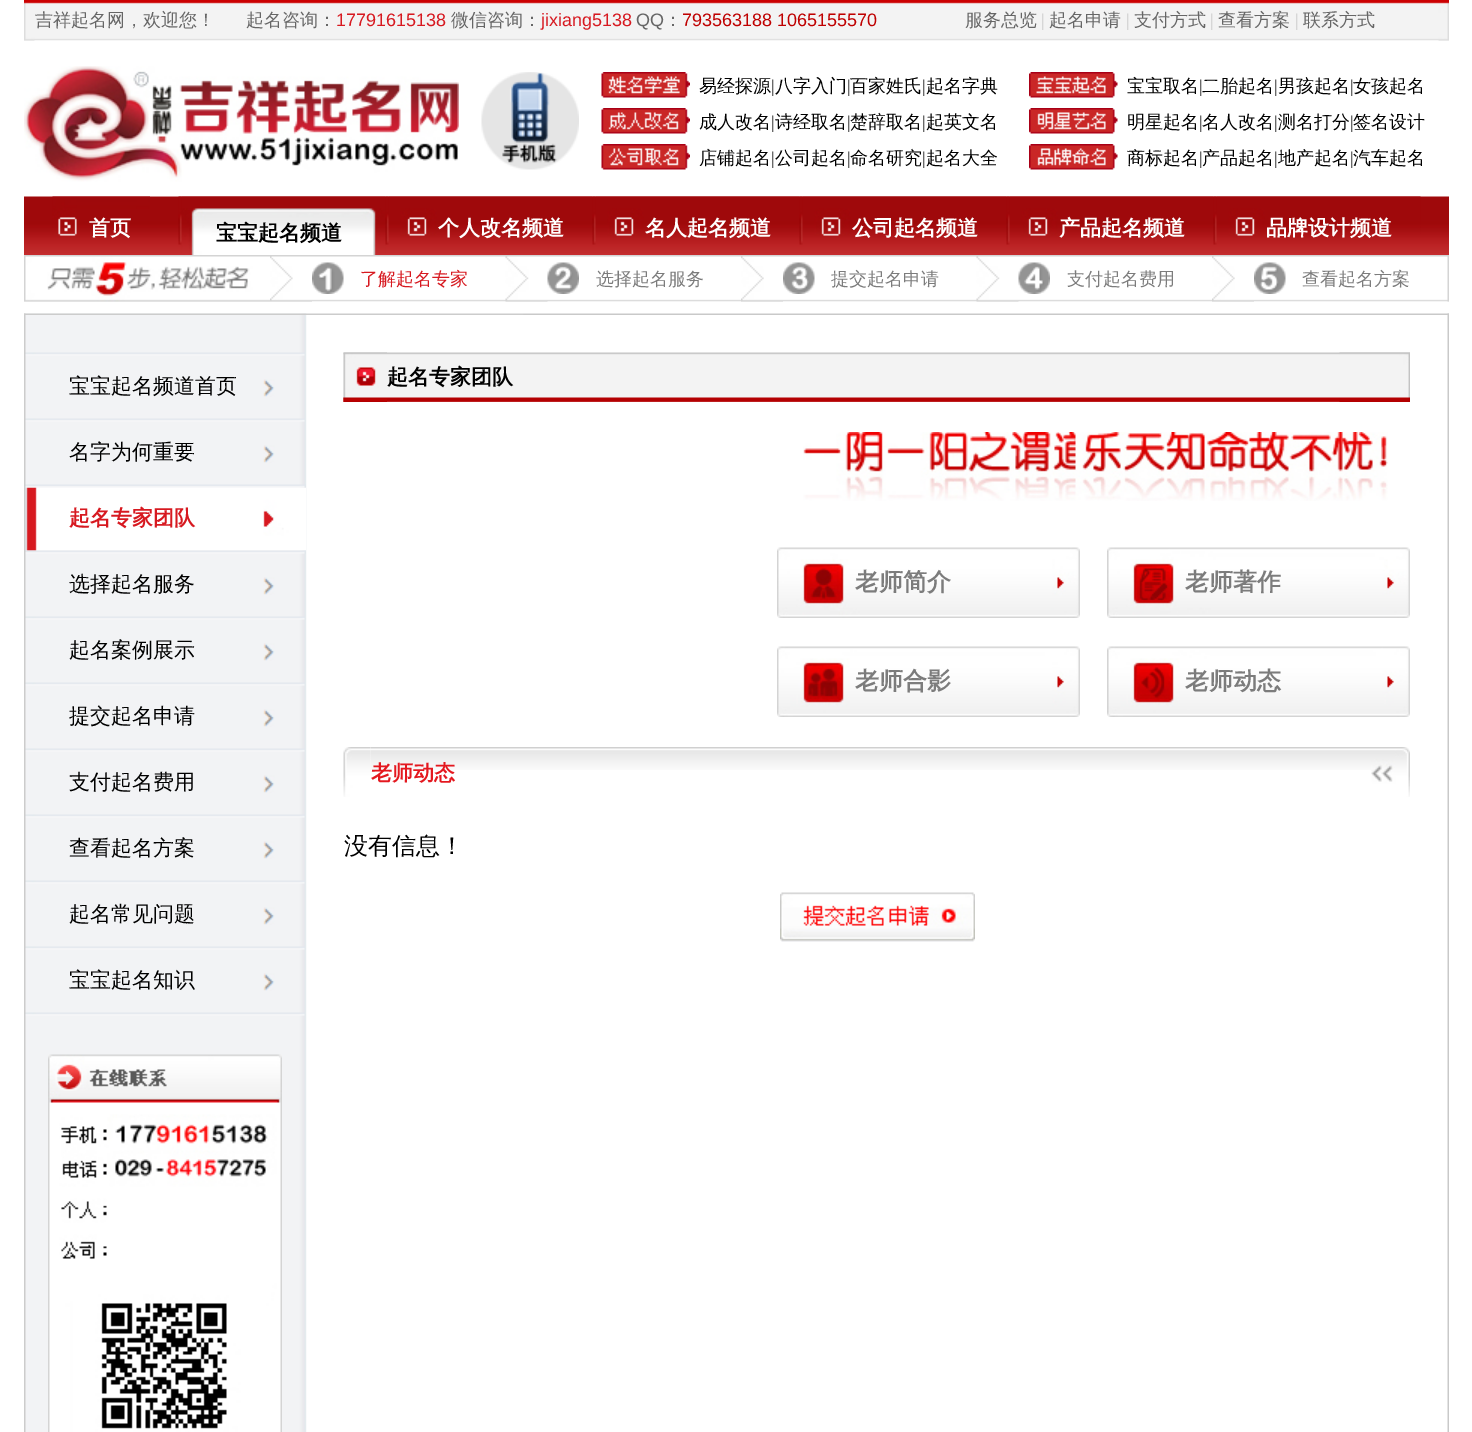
%!PS-Adobe-3.0
%%BoundingBox: 0 0 1472 1432
%%LanguageLevel: 3
%%Pages: 1
%%EndComments
%%BeginProlog
/fn { [ exch dup neg 0 0 3 -1 roll 0 0 ] selectfont } def
/tx { moveto show } def
/bx { rectfill } def
/im { 5 dict begin { /h /w /y /x /name } { exch def } forall
  gsave x y translate w h scale
  w h 8 [w 0 0 h 0 0] name (r) file false 3 colorimage grestore end } def
%%EndProlog
%%BeginSetup
<< /PageSize [1472 1432] >> setpagedevice
%%EndSetup
%%Page: 1 1
0 1432 translate 1 -1 scale
4 setmiterlimit
1 setgray
0 0 1472 1432 bx
(image0.raw) 24 0 1425 41 im
(image1.raw) 24 3 11 38 im
/WenQuanYiZenHei-Medium 18 fn
0.4 setgray
(吉祥起名网，欢迎您！) 35 26 tx
(起名咨询：) 246 26 tx
/LiberationSans-Regular 18 fn
0.843 0.098 0.125 setrgbcolor
(17791615138) 336 26 tx
/WenQuanYiZenHei-Medium 18 fn
0.4 setgray
(微信咨询：) 451 26 tx
/LiberationSans-Regular 18 fn
0.843 0.098 0.125 setrgbcolor
(jixiang5138) 541 26 tx
0.4 setgray
(QQ) 636 26 tx
/WenQuanYiZenHei-Medium 18 fn
(：) 664 26 tx
/LiberationSans-Regular 18 fn
0.749 0 0 setrgbcolor
(793563188) 682 26 tx
(1065155570) 777 26 tx
/WenQuanYiZenHei-Medium 18 fn
0.4 setgray
(服务总览) 965 26 tx
/LiberationSerif-Regular 18 fn
0.8 setgray
(|) 1041 26 tx
/WenQuanYiZenHei-Medium 18 fn
0.4 setgray
(起名申请) 1049 26 tx
/LiberationSerif-Regular 18 fn
0.8 setgray
(|) 1126 26 tx
/WenQuanYiZenHei-Medium 18 fn
0.4 setgray
(支付方式) 1134 26 tx
/LiberationSerif-Regular 18 fn
0.8 setgray
(|) 1210 26 tx
/WenQuanYiZenHei-Medium 18 fn
0.4 setgray
(查看方案) 1218 26 tx
/LiberationSerif-Regular 18 fn
0.8 setgray
(|) 1295 26 tx
/WenQuanYiZenHei-Medium 18 fn
0.4 setgray
(联系方式) 1303 26 tx
(image2.raw) 1438 3 11 38 im
(image3.raw) 24 66 435 116 im
(image4.raw) 481 72 98 98 im
(image5.raw) 601 72 89 26 im
(image6.raw) 601 108 89 26 im
(image7.raw) 601 144 89 26 im
0 setgray
(易经探源) 699 92 tx
/LiberationSerif-Regular 18 fn
0.2 setgray
(|) 771 92 tx
/WenQuanYiZenHei-Medium 18 fn
0 setgray
(八字入门) 775 92 tx
/LiberationSerif-Regular 18 fn
0.2 setgray
(|) 847 92 tx
/WenQuanYiZenHei-Medium 18 fn
0 setgray
(百家姓氏) 850 92 tx
/LiberationSerif-Regular 18 fn
0.2 setgray
(|) 922 92 tx
/WenQuanYiZenHei-Medium 18 fn
0 setgray
(起名字典) 926 92 tx
(成人改名) 699 128 tx
/LiberationSerif-Regular 18 fn
0.2 setgray
(|) 771 128 tx
/WenQuanYiZenHei-Medium 18 fn
0 setgray
(诗经取名) 775 128 tx
/LiberationSerif-Regular 18 fn
0.2 setgray
(|) 847 128 tx
/WenQuanYiZenHei-Medium 18 fn
0 setgray
(楚辞取名) 850 128 tx
/LiberationSerif-Regular 18 fn
0.2 setgray
(|) 922 128 tx
/WenQuanYiZenHei-Medium 18 fn
0 setgray
(起英文名) 926 128 tx
(店铺起名) 699 164 tx
/LiberationSerif-Regular 18 fn
0.2 setgray
(|) 771 164 tx
/WenQuanYiZenHei-Medium 18 fn
0 setgray
(公司起名) 775 164 tx
/LiberationSerif-Regular 18 fn
0.2 setgray
(|) 847 164 tx
/WenQuanYiZenHei-Medium 18 fn
0 setgray
(命名研究) 850 164 tx
/LiberationSerif-Regular 18 fn
0.2 setgray
(|) 922 164 tx
/WenQuanYiZenHei-Medium 18 fn
0 setgray
(起名大全) 926 164 tx
(image8.raw) 1029 72 89 26 im
(image9.raw) 1029 108 89 26 im
(image10.raw) 1029 144 89 26 im
(宝宝取名) 1127 92 tx
/LiberationSerif-Regular 18 fn
0.2 setgray
(|) 1199 92 tx
/WenQuanYiZenHei-Medium 18 fn
0 setgray
(二胎起名) 1202 92 tx
/LiberationSerif-Regular 18 fn
0.2 setgray
(|) 1274 92 tx
/WenQuanYiZenHei-Medium 18 fn
0 setgray
(男孩起名) 1278 92 tx
/LiberationSerif-Regular 18 fn
0.2 setgray
(|) 1350 92 tx
/WenQuanYiZenHei-Medium 18 fn
0 setgray
(女孩起名) 1353 92 tx
(明星起名) 1127 128 tx
/LiberationSerif-Regular 18 fn
0.2 setgray
(|) 1199 128 tx
/WenQuanYiZenHei-Medium 18 fn
0 setgray
(名人改名) 1202 128 tx
/LiberationSerif-Regular 18 fn
0.2 setgray
(|) 1274 128 tx
/WenQuanYiZenHei-Medium 18 fn
0 setgray
(测名打分) 1278 128 tx
/LiberationSerif-Regular 18 fn
0.2 setgray
(|) 1350 128 tx
/WenQuanYiZenHei-Medium 18 fn
0 setgray
(签名设计) 1353 128 tx
(商标起名) 1127 164 tx
/LiberationSerif-Regular 18 fn
0.2 setgray
(|) 1199 164 tx
/WenQuanYiZenHei-Medium 18 fn
0 setgray
(产品起名) 1202 164 tx
/LiberationSerif-Regular 18 fn
0.2 setgray
(|) 1274 164 tx
/WenQuanYiZenHei-Medium 18 fn
0 setgray
(地产起名) 1278 164 tx
/LiberationSerif-Regular 18 fn
0.2 setgray
(|) 1350 164 tx
/WenQuanYiZenHei-Medium 18 fn
0 setgray
(汽车起名) 1353 164 tx
(image11.raw) 24 196 1425 59 im
(image12.raw) 52 196 98 40 im
/WenQuanYiZenHei-Bold 21 fn
1 setgray
(首页) 89 235 tx
(image14.raw) 181 196 205 59 im
(image13.raw) 178 196 4 49 im
0 setgray
(宝宝起名频道) 216 240 tx
(image16.raw) 388 196 205 40 im
(image15.raw) 385 196 4 49 im
1 setgray
(个人改名频道) 438 235 tx
(image16.raw) 595 196 205 40 im
(image17.raw) 592 196 4 49 im
(名人起名频道) 645 235 tx
(image18.raw) 802 196 205 40 im
(image17.raw) 799 196 4 49 im
(公司起名频道) 852 235 tx
(image18.raw) 1009 196 205 40 im
(image17.raw) 1006 196 4 49 im
(产品起名频道) 1059 235 tx
(image18.raw) 1216 196 205 40 im
(image17.raw) 1213 196 4 49 im
(品牌设计频道) 1266 235 tx
(image19.raw) 24 255 1425 47 im
(image20.raw) 24 256 246 46 im
(image21.raw) 270 256 42 46 im
(image22.raw) 312 262 32 32 im
/WenQuanYiZenHei-Medium 18 fn
0.843 0.098 0.125 setrgbcolor
(了解起名专家) 360 285 tx
(image23.raw) 505 256 43 46 im
(image24.raw) 547 262 32 32 im
0.486 setgray
(选择起名服务) 596 285 tx
(image25.raw) 741 256 42 46 im
(image26.raw) 783 262 32 32 im
(提交起名申请) 831 285 tx
(image23.raw) 976 256 43 46 im
(image27.raw) 1018 262 32 32 im
(支付起名费用) 1067 285 tx
(image25.raw) 1212 256 42 46 im
(image28.raw) 1254 262 32 32 im
(查看起名方案) 1302 285 tx
(image29.raw) 1447 256 2 46 im
(image30.raw) 24 313 1425 1 im
(image31.raw) 24 313 1425 2 im
(image32.raw) 24 315 1425 1117 im
(image33.raw) 25 352 280 4 im
(image34.raw) 263 379 12 18 im
/WenQuanYiZenHei-Medium 21 fn
0 setgray
(宝宝起名频道首页) 69 393 tx
(image33.raw) 25 418 280 4 im
(image34.raw) 263 445 12 18 im
(名字为何重要) 69 459 tx
(image36.raw) 25 487 281 64 im
(image35.raw) 25 484 281 4 im
/WenQuanYiZenHei-Bold 21 fn
0.843 0.098 0.125 setrgbcolor
(起名专家团队) 69 525 tx
(image37.raw) 25 550 281 4 im
(image34.raw) 263 577 12 18 im
/WenQuanYiZenHei-Medium 21 fn
0 setgray
(选择起名服务) 69 591 tx
(image33.raw) 25 616 280 4 im
(image34.raw) 263 643 12 18 im
(起名案例展示) 69 657 tx
(image33.raw) 25 682 280 4 im
(image34.raw) 263 709 12 18 im
(提交起名申请) 69 723 tx
(image33.raw) 25 748 280 4 im
(image34.raw) 263 775 12 18 im
(支付起名费用) 69 789 tx
(image33.raw) 25 814 280 4 im
(image34.raw) 263 841 12 18 im
(查看起名方案) 69 855 tx
(image33.raw) 25 880 280 4 im
(image34.raw) 263 907 12 18 im
(起名常见问题) 69 921 tx
(image33.raw) 25 946 280 4 im
(image34.raw) 263 973 12 18 im
(宝宝起名知识) 69 987 tx
(image33.raw) 25 1012 280 4 im
(image38.raw) 48 1054 234 378 im
(image39.raw) 343 352 1067 50 im
(image40.raw) 343 352 44 50 im
/WenQuanYiZenHei-Bold 21 fn
(起名专家团队) 387 384 tx
(image41.raw) 1339 352 71 50 im
(image42.raw) 803 432 585 69 im
(image43.raw) 777 547 303 71 im
/WenQuanYiZenHei-Bold 24 fn
0.486 setgray
(老师简介) 855 590 tx
(image44.raw) 1107 547 303 71 im
(老师著作) 1185 590 tx
(image45.raw) 777 646 303 71 im
(老师合影) 855 689 tx
(image46.raw) 1107 646 303 71 im
(老师动态) 1185 689 tx
(image48.raw) 370 747 1001 23 im
(image47.raw) 343 747 28 50 im
/WenQuanYiZenHei-Bold 21 fn
0.894 0.094 0.122 setrgbcolor
(老师动态) 371 780 tx
(image49.raw) 1371 747 39 50 im
/WenQuanYiZenHei-Medium 24 fn
0 setgray
(没有信息！) 344 854 tx
(image50.raw) 780 892 195 50 im
showpage
%%EOF
